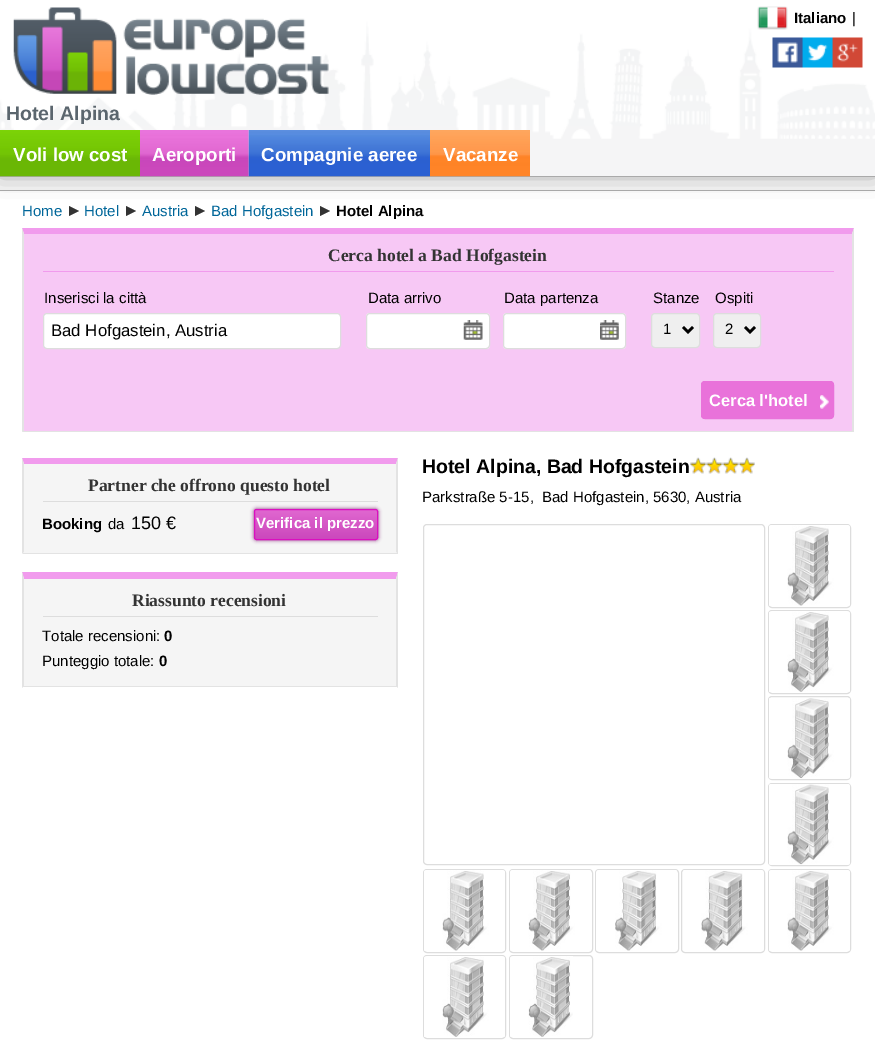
%!PS-Adobe-3.0
%%BoundingBox: 0 0 875 1047
%%LanguageLevel: 3
%%Pages: 1
%%EndComments
%%BeginProlog
/m { moveto } bind def
/l { lineto } bind def
/h { closepath } bind def
/f { fill } bind def
/S { stroke } bind def
/q { gsave } bind def
/Q { grestore } bind def
/w { setlinewidth } bind def
/fn { [ exch dup neg 0 0 3 -1 roll 0 0 ] selectfont } def
/tx { moveto show } def
/bx { rectfill } def
/al { dup .setfillconstantalpha .setstrokeconstantalpha } def
/rr { 5 dict begin { /r /h /w /y /x } { exch def } forall
  x r add y moveto x w add y 2 copy h add r arct x w add y h add x 1 index r arct
  x y h add x y r arct x y 2 copy exch w add exch r arct closepath end } def
/sh { 12 dict begin { /a /b /q /h /w /y /x } { exch def } forall gsave /was 0 def
  9 -2 -9 { dup b mul 4 div /e exch def 1 sub .425 mul 2.718 exch exp 1 add a .99 .min exch div /now exch def
    1 1 now sub 1 was sub div sub al /was now def
    w h .min e 2 mul add 0 gt { x e sub y e sub w e 2 mul add h e 2 mul add
      q e add b .6 mul add w h .min 2 div e add .min 0 .max rr fill } if } for grestore end } def
/im { 5 dict begin { /h /w /y /x /name } { exch def } forall
  gsave x y translate w h scale
  w h 8 [w 0 0 h 0 0] name (r) file false 3 colorimage grestore end } def
%%EndProlog
%%BeginSetup
<< /PageSize [875 1047] /PageUsesTransparency true >> setpagedevice
%%EndSetup
%%Page: 1 1
0 .pushpdf14devicefilter
0 1047 translate 1 -1 scale
4 setmiterlimit
0.957 setgray
0 0 875 1047 bx
1 setgray
0 191 875 856 bx
0.667 setgray
0 190 875 1 bx
0.2 setgray
69 216 m 69 206 l 79 211 l h f
126 216 m 126 206 l 136 211 l h f
195 216 m 195 206 l 205 211 l h f
320 216 m 320 206 l 330 211 l h f
0.533 setgray
0 -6 875 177 0 12.5 1 sh
0.961 0.961 0.965 setrgbcolor
248 139 627 37 bx
(image0.raw) 0 0 875 139 im
0.667 setgray
0 176 875 1 bx
(image1.raw) 13 7 316 88 im
(image2.raw) 757 6 31 24 im
/LiberationSans-Bold 15 fn
0 setgray
(Italiano) 794 23 tx
/LiberationSans-Regular 15 fn
(|) 852 23 tx
(image3.raw) 772 37 91 31 im
/LiberationSans-Bold 19.5 fn
0.357 0.4 0.431 setrgbcolor
(Hotel Alpina) 6 120 tx
(image4.raw) 0 130 140 47 im
/LiberationSans-Bold 18.75 fn
1 setgray
(Voli low cost) 13 161 tx
(image5.raw) 140 130 109 47 im
(Aeroporti) 152 161 tx
(image6.raw) 248 130 182 47 im
(Compagnie aeree) 261 161 tx
(image7.raw) 430 130 100 47 im
(Vacanze) 443 161 tx
/LiberationSans-Regular 15 fn
0 0.4 0.6 setrgbcolor
(Home) 22 216 tx
(Hotel) 84 216 tx
(Austria) 142 216 tx
(Bad Hofgastein) 211 216 tx
/LiberationSans-Bold 15 fn
0 setgray
(Hotel Alpina) 336 216 tx
0.969 0.784 0.961 setrgbcolor
24 234 828 197 bx
0.945 0.608 0.929 setrgbcolor
22 228 m 854 228 l 852 234 l 24 234 l h f
0.89 setgray
854 228 m 854 432 l 852 431 l 852 234 l h f
23 431 831 1 bx
22 432 m 22 228 l 24 234 l 24 431 l h f
0.945 0.608 0.929 setrgbcolor
43 271 791 1 bx
/LiberationSerif-Bold 17.5 fn
0.2 setgray
(Cerca hotel a Bad Hofgastein) 328 261 tx
/LiberationSans-Regular 15 fn
0 setgray
(Inserisci la città) 44 303 tx
1 setgray
43.5 313.5 297 35 3.5 rr q f Q
0.867 setgray
S
/LiberationSans-Regular 16.75 fn
0 setgray
(Bad Hofgastein, Austria) 51 336 tx
/LiberationSans-Regular 15 fn
(Data arrivo) 368 303 tx
1 setgray
366 313 124 36 4 rr f
(image8.raw) 463 320 20 20 im
0.867 setgray
366.5 313.5 123 35 3.5 rr S
0 setgray
(Data partenza) 504 303 tx
1 setgray
503 313 123 36 4 rr f
(image9.raw) 600 320 19 20 im
0.867 setgray
503.5 313.5 122 35 3.5 rr S
0 setgray
(Stanze) 653 303 tx
0.937 setgray
651.5 313.5 48 34 3.5 rr q f Q
0.867 setgray
S
0 setgray
2.5 w
683 327 m 688 332 l 693 327 l S
(1) 663 334 tx
(Ospiti) 715 303 tx
0.937 setgray
713.5 313.5 47 34 3.5 rr q f Q
0.867 setgray
1 w
S
0 setgray
2.5 w
745 327 m 750 332 l 755 327 l S
(2) 725 334 tx
0.914 0.447 0.855 setrgbcolor
701 381 133 38 4 rr f
(image10.raw) 820 395 9 14 im
1 w
701.5 381.5 132 37 3.5 rr S
/LiberationSans-Bold 16.5 fn
1 setgray
(Cerca l'hotel) 709 406 tx
0.961 setgray
24 464 372 89 bx
0.945 0.608 0.929 setrgbcolor
22 458 m 398 458 l 396 464 l 24 464 l h f
0.89 setgray
398 458 m 398 554 l 396 552 l 396 464 l h f
23 553 375 1 bx
22 554 m 22 458 l 24 464 l 24 552 l h f
0.867 setgray
43 501 335 1 bx
/LiberationSerif-Bold 17.5 fn
0.2 setgray
(Partner che offrono questo hotel) 88 491 tx
/LiberationSans-Bold 15 fn
0 setgray
(Booking) 42 529 tx
/LiberationSans-Regular 15 fn
(da) 108 529 tx
/LiberationSans-Regular 18 fn
(150 €) 131 529 tx
0.51 0.102 0.459 setrgbcolor
254 509 124 31 2.5 2 1 sh
q
254 509 124 31 2.5 rr clip newpath
q 254 510 m 378 510 l 378 539 l 254 539 l h clip newpath
<< /ShadingType 2 /ColorSpace /DeviceRGB /Coords [316 510 316 539] /Extend [true true] /Function << /FunctionType 2 /Domain [0 1] /C0 [0.878 0.404 0.816] /C1 [0.796 0.282 0.737] /N 1 >> >> shfill Q
Q
0.859 0.059 0.753 setrgbcolor
254.5 509.5 123 30 2 rr S
/LiberationSans-Bold 15 fn
1 setgray
(Verifica il prezzo) 256 528 tx
0.961 setgray
24 579 372 107 bx
0.945 0.608 0.929 setrgbcolor
22 572 m 398 572 l 396 579 l 24 579 l h f
0.89 setgray
398 572 m 398 688 l 396 686 l 396 579 l h f
23 686 375 1 bx
22 688 m 22 572 l 24 579 l 24 686 l h f
0.867 setgray
43 616 335 1 bx
/LiberationSerif-Bold 17.5 fn
0.2 setgray
(Riassunto recensioni) 132 606 tx
/LiberationSans-Regular 15 fn
0 setgray
(Totale recensioni:) 42 641 tx
/LiberationSans-Bold 15 fn
(0) 164 641 tx
/LiberationSans-Regular 15 fn
(Punteggio totale:) 42 666 tx
/LiberationSans-Bold 15 fn
(0) 159 666 tx
/LiberationSans-Bold 19.5 fn
(Hotel Alpina, Bad Hofgastein) 422 473 tx
(image11.raw) 690 457 65 17 im
/LiberationSans-Regular 15 fn
(Parkstraße 5-15,) 422 502 tx
(Bad Hofgastein, 5630, Austria) 542 502 tx
0.867 setgray
423.5 524.5 341 340 3.5 rr S
768.5 524.5 82 83 3.5 rr S
(image12.raw) 769 525 81 81 im
768.5 610.5 82 83 3.5 rr S
(image13.raw) 769 611 81 81 im
768.5 696.5 82 83 3.5 rr S
(image14.raw) 769 698 81 81 im
768.5 783.5 82 82 3.5 rr S
(image15.raw) 769 784 81 81 im
423.5 869.5 82 83 3.5 rr S
(image16.raw) 424 870 81 81 im
509.5 869.5 83 83 3.5 rr S
(image17.raw) 510 870 81 81 im
595.5 869.5 83 83 3.5 rr S
(image18.raw) 596 870 81 81 im
681.5 869.5 83 83 3.5 rr S
(image19.raw) 683 870 81 81 im
768.5 869.5 82 83 3.5 rr S
(image12.raw) 769 870 81 81 im
423.5 955.5 82 83 3.5 rr S
(image20.raw) 424 956 81 81 im
509.5 955.5 83 83 3.5 rr S
(image21.raw) 510 956 63 81 im
.poppdf14devicefilter showpage
%%EOF
